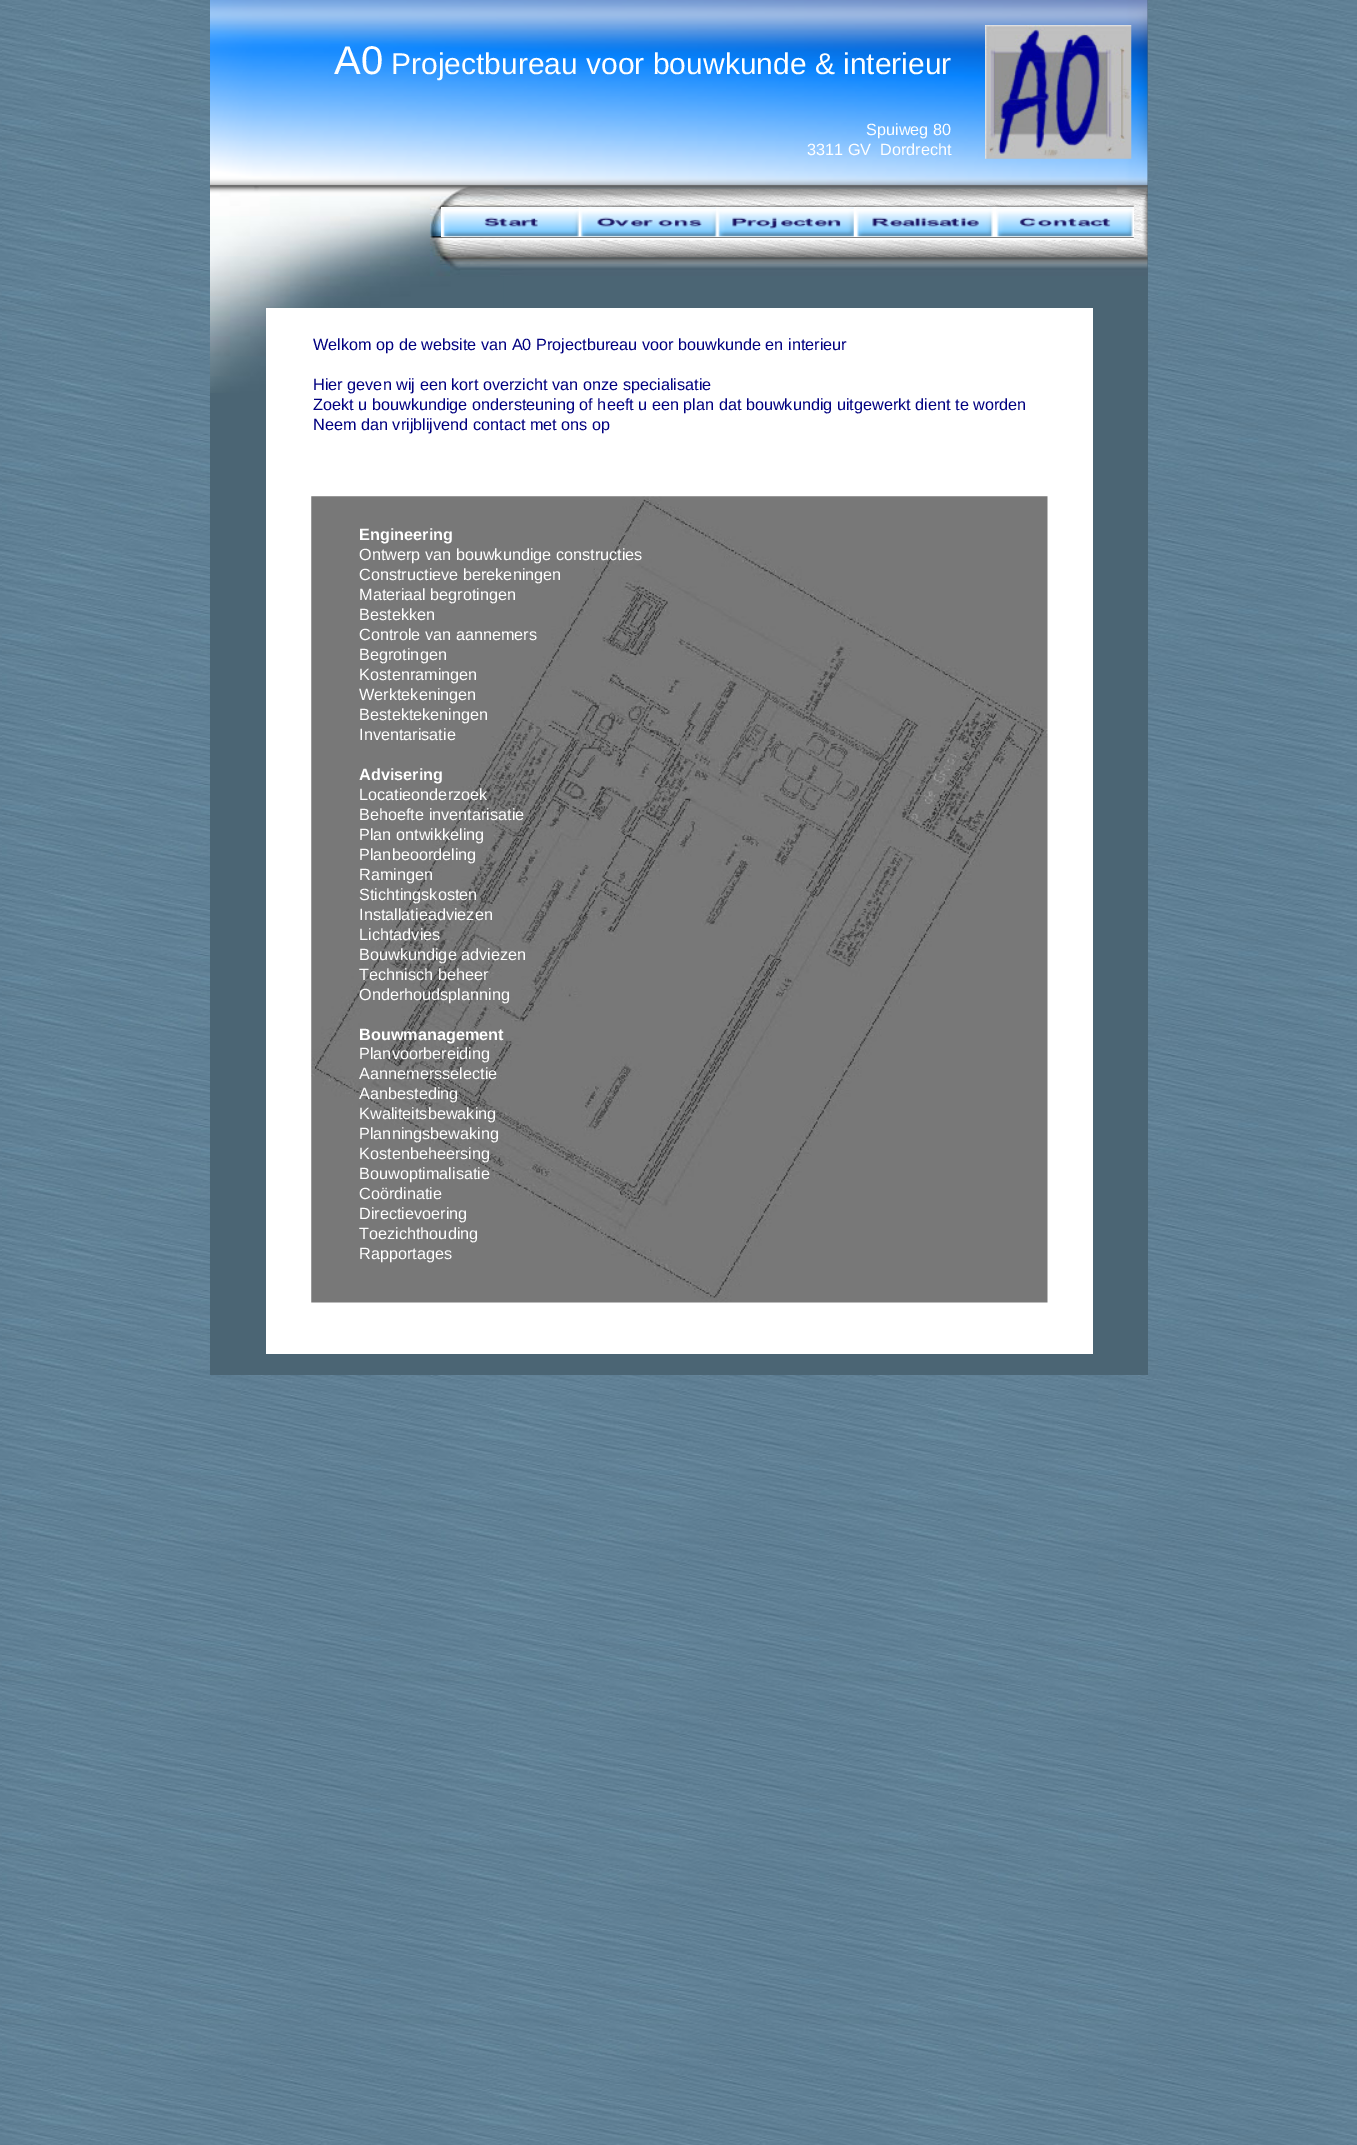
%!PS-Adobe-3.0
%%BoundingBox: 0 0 1357 2145
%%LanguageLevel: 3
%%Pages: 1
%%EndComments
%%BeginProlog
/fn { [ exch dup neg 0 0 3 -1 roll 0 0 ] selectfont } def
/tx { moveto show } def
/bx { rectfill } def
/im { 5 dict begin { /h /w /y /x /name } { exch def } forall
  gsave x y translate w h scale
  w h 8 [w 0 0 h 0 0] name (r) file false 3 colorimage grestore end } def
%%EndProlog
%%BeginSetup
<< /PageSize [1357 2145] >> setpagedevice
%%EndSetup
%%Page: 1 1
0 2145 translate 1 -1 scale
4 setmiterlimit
1 setgray
0 0 1357 2145 bx
(image0.raw) 0 0 1357 2145 im
0.294 0.396 0.455 setrgbcolor
210 0 938 1375 bx
(image4.raw) 503 188 645 70 im
(image3.raw) 210 185 294 208 im
(image1.raw) 210 0 938 194 im
/LiberationSans-Regular 40 fn
1 setgray
(A0) 334 74 tx
/LiberationSans-Regular 30 fn
(Projectbureau voor bouwkunde & interieur) 391 74 tx
/LiberationSans-Regular 16.25 fn
(Spuiweg 80) 866 135 tx
(3311 GV  Dordrecht) 807 155 tx
(image2.raw) 985 25 147 134 im
441 207 693 30 bx
(image5.raw) 442 207 137 30 im
(image6.raw) 580 207 137 30 im
(image7.raw) 717 207 137 30 im
(image8.raw) 856 207 137 30 im
(image9.raw) 996 207 137 30 im
(image10.raw) 500 257 648 19 im
266 308 827 1046 bx
0 0 0.502 setrgbcolor
(Welkom op de website van A0 Projectbureau voor bouwkunde en interieur) 313 350 tx
(Hier geven wij een kort overzicht van onze specialisatie) 313 390 tx
(Zoekt u bouwkundige ondersteuning of heeft u een plan dat bouwkundig uitgewerkt dient te worden) 313 410 tx
(Neem dan vrijblijvend contact met ons op) 313 430 tx
(image11.raw) 311 496 737 807 im
/LiberationSans-Bold 16.25 fn
1 setgray
(Engineering) 359 540 tx
/LiberationSans-Regular 16.25 fn
(Ontwerp van bouwkundige constructies) 359 560 tx
(Constructieve berekeningen) 359 580 tx
(Materiaal begrotingen) 359 600 tx
(Bestekken) 359 620 tx
(Controle van aannemers) 359 640 tx
(Begrotingen) 359 660 tx
(Kostenramingen) 359 680 tx
(Werktekeningen) 359 700 tx
(Bestektekeningen) 359 720 tx
(Inventarisatie) 359 740 tx
/LiberationSans-Bold 16.25 fn
(Advisering) 359 780 tx
/LiberationSans-Regular 16.25 fn
(Locatieonderzoek) 359 800 tx
(Behoefte inventarisatie) 359 820 tx
(Plan ontwikkeling) 359 840 tx
(Planbeoordeling) 359 860 tx
(Ramingen) 359 880 tx
(Stichtingskosten) 359 900 tx
(Installatieadviezen) 359 920 tx
(Lichtadvies) 359 940 tx
(Bouwkundige adviezen) 359 960 tx
(Technisch beheer) 359 980 tx
(Onderhoudsplanning) 359 1000 tx
/LiberationSans-Bold 16.25 fn
(Bouwmanagement) 359 1040 tx
/LiberationSans-Regular 16.25 fn
(Planvoorbereiding) 359 1059 tx
(Aannemersselectie) 359 1079 tx
(Aanbesteding) 359 1099 tx
(Kwaliteitsbewaking) 359 1119 tx
(Planningsbewaking) 359 1139 tx
(Kostenbeheersing) 359 1159 tx
(Bouwoptimalisatie) 359 1179 tx
(Coördinatie) 359 1199 tx
(Directievoering) 359 1219 tx
(Toezichthouding) 359 1239 tx
(Rapportages) 359 1259 tx
showpage
%%EOF
